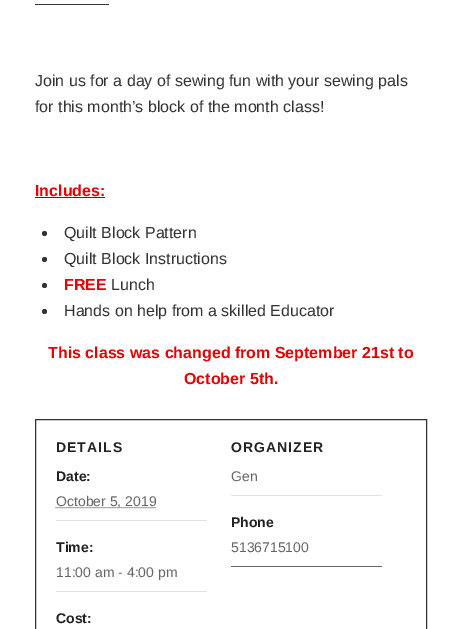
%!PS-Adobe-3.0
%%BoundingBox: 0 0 462 629
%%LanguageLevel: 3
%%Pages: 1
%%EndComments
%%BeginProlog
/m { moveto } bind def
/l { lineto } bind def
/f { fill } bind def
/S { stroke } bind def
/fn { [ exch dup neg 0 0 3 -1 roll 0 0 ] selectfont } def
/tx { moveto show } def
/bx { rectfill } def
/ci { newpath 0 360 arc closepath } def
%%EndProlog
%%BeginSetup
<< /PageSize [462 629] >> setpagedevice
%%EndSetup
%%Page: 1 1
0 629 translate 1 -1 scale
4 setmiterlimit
1 setgray
0 0 462 629 bx
0.2 setgray
35 4 74 1 bx
/LiberationSans-Regular 16 fn
(Join us for a day of sewing fun with your sewing pals) 35 86 tx
(for this month’s block of the month class!) 35 112 tx
/LiberationSans-Bold 16 fn
0.906 0 0 setrgbcolor
(Includes:) 35 196 tx
0.2 setgray
35 197 70 1 bx
44.5 233.5 2.5 ci f
/LiberationSans-Regular 16 fn
(Quilt Block Pattern) 64 238 tx
44.5 259.5 2.5 ci f
(Quilt Block Instructions) 64 264 tx
44.5 285.5 2.5 ci f
/LiberationSans-Bold 16 fn
0.906 0 0 setrgbcolor
(FREE) 64 290 tx
/LiberationSans-Regular 16 fn
0.2 setgray
(Lunch) 111 290 tx
44.5 311.5 2.5 ci f
(Hands on help from a skilled Educator) 64 316 tx
/LiberationSans-Bold 16 fn
0.906 0 0 setrgbcolor
(This class was changed from September 21st to) 48 358 tx
(October 5th.) 184 384 tx
0.2 setgray
35.5 419.5 391 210 rectstroke
/LiberationSans-Bold 14 fn
0.133 setgray
56 452 m 1 0 (DETAILS) ashow
(Date:) 56 481 tx
0.882 setgray
56 520 151 1 bx
0.4 setgray
[1 1] 0 setdash
55.5 507.5 m 156 507.5 l S
/LiberationSans-Regular 14 fn
(October 5, 2019) 56 506 tx
/LiberationSans-Bold 14 fn
0.133 setgray
(Time:) 56 552 tx
0.882 setgray
56 591 151 1 bx
/LiberationSans-Regular 14 fn
0.4 setgray
(11:00 am - 4:00 pm) 56 577 tx
/LiberationSans-Bold 14 fn
0.133 setgray
(Cost:) 56 623 tx
231 452 m 1 0 (ORGANIZER) ashow
0.882 setgray
231 495 151 1 bx
/LiberationSans-Regular 14 fn
0.4 setgray
(Gen) 231 481 tx
/LiberationSans-Bold 14 fn
0.133 setgray
(Phone) 231 527 tx
0.4 setgray
231 566 151 1 bx
/LiberationSans-Regular 14 fn
(5136715100) 231 552 tx
showpage
%%EOF
